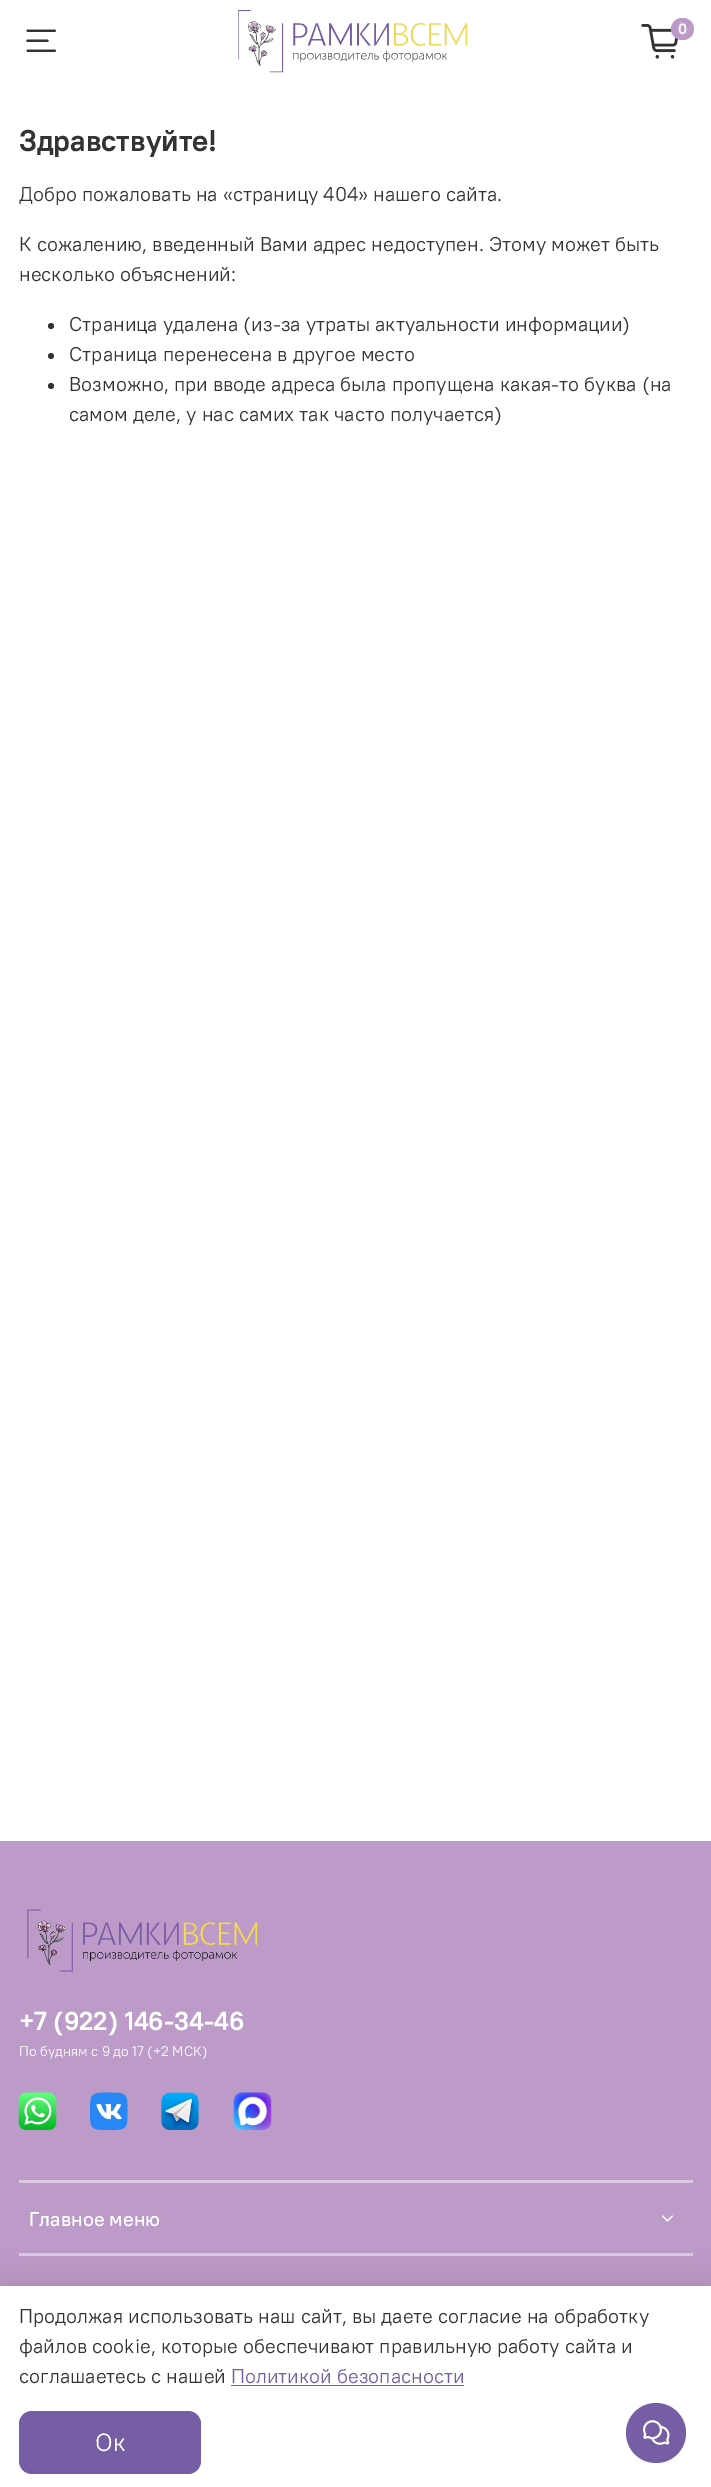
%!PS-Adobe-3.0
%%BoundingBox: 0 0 711 2487
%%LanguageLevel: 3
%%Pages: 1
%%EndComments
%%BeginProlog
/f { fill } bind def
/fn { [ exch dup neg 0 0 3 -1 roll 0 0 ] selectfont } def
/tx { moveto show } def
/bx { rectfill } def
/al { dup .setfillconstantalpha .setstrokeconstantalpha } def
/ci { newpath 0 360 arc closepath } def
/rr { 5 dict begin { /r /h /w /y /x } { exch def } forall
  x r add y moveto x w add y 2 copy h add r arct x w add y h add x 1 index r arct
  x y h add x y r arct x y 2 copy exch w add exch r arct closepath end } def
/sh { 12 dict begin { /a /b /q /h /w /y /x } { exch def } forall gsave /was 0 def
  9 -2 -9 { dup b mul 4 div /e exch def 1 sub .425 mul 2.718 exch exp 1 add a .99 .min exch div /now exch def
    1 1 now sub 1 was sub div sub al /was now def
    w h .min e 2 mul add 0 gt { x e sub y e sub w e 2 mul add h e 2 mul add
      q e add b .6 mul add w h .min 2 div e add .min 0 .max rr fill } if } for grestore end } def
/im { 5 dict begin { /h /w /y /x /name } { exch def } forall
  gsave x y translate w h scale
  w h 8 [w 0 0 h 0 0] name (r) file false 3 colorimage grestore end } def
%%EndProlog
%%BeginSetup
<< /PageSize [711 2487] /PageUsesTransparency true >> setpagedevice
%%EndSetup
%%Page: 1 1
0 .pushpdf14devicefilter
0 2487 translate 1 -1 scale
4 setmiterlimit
1 setgray
0 0 711 2487 bx
(image0.raw) 26 29 31 23 im
(image1.raw) 238 10 230 63 im
(image2.raw) 641 24 37 35 im
0.737 0.608 0.784 setrgbcolor
671 18 23 22 11 rr f
/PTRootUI-Bold 15 fn
1 setgray
(0) 678 34 tx
/PTRootUI-Bold 30 fn
0.2 setgray
(Здравствуйте!) 19 151 tx
/PTRootUI-Regular 20 fn
(Добро пожаловать на «страницу 404» нашего сайта.) 19 201 tx
(К сожалению, введенный Вами адрес недоступен. Этому может быть) 19 251 tx
(несколько объяснений:) 19 281 tx
51 326 3 ci f
(Страница удалена \(из-за утраты актуальности информации\)) 69 331 tx
51 356 3 ci f
(Страница перенесена в другое место) 69 361 tx
51 386 3 ci f
(Возможно, при вводе адреса была пропущена какая-то буква \(на) 69 391 tx
(самом деле, у нас самих так часто получается\)) 69 421 tx
0.737 0.608 0.784 setrgbcolor
0 1841 711 445 bx
(image3.raw) 27 1909 231 63 im
/PTRootUI-Bold 26 fn
1 setgray
(+7 \(922\) 146-34-46) 19 2030 tx
/PTRootUI-Regular 14 fn
(По будням с 9 до 17 \(+2 МСК\)) 19 2056 tx
(image4.raw) 18 2092 39 38 im
(image5.raw) 90 2092 38 38 im
(image6.raw) 161 2092 38 38 im
(image7.raw) 233 2092 39 38 im
0.863 0.792 0.886 setrgbcolor
19 2180 674 3 bx
/PTRootUI-Medium 20 fn
1 setgray
(Главное меню) 29 2226 tx
(image8.raw) 662 2215 11 7 im
0.863 0.792 0.886 setrgbcolor
19 2253 674 3 bx
0 setgray
-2 2283 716 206 0 14.5 0.09 sh
1 setgray
0 2286 711 201 bx
/PTRootUI-Regular 20 fn
0.2 setgray
(Продолжая использовать наш сайт, вы даете согласие на обработку) 19 2323 tx
(файлов cookie, которые обеспечивают правильную работу сайта и) 19 2353 tx
(соглашаетесь с нашей) 19 2383 tx
0.463 0.369 0.643 setrgbcolor
(Политикой безопасности) 231 2383 tx
231 2385 233 1 bx
19 2411 182 63 13 rr f
/PTRootUI-Regular 25 fn
1 setgray
(Ок) 95 2451 tx
0.463 0.369 0.643 setrgbcolor
656 2433 30 ci f
(image9.raw) 643 2420 27 25 im
.poppdf14devicefilter showpage
%%EOF
